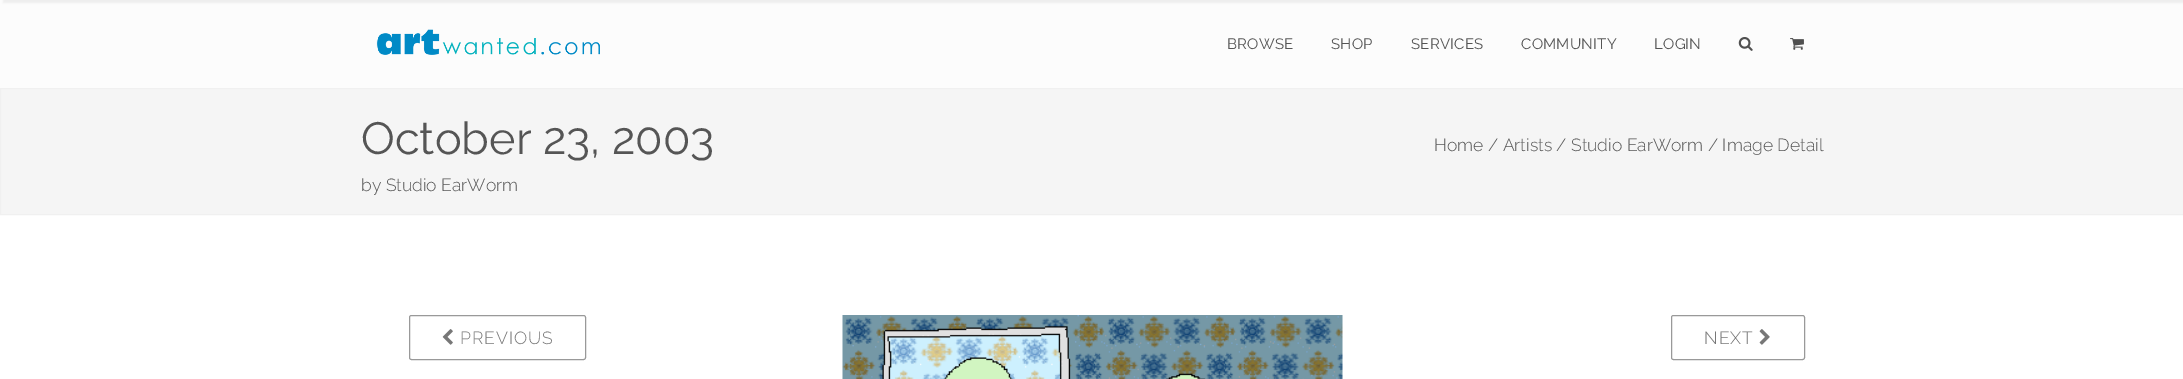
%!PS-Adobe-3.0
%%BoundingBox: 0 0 2183 379
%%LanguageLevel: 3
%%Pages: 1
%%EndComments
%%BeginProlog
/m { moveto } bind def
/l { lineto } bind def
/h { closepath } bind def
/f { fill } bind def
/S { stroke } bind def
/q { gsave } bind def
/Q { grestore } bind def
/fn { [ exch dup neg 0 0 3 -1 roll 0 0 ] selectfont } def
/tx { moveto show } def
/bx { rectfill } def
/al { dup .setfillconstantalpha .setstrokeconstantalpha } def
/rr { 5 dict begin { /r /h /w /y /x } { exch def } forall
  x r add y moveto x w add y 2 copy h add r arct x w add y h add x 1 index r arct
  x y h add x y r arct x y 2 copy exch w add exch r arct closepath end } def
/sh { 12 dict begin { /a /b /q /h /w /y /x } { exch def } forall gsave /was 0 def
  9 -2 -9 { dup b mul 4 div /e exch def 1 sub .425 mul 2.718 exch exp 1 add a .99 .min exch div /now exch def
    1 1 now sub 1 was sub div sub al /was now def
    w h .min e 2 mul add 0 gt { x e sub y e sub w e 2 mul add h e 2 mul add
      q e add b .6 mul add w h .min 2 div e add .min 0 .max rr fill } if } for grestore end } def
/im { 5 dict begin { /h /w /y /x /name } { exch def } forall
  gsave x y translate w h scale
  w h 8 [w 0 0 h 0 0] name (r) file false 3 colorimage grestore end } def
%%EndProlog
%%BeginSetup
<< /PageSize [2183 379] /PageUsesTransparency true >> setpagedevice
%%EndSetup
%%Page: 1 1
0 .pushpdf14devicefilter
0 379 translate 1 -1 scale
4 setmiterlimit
1 setgray
0 0 2183 379 bx
0.988 setgray
0 0 2183 88 bx
0 setgray
3 -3 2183 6 0 1 0.05 sh
(image0.raw) 376 29 224 26 im
/Raleway-Regular 15 fn
0.333 setgray
1227 49 m 0.25 0 (BROWSE) ashow
1331 49 m 0.25 0 (SHOP) ashow
1411 49 m 0.25 0 (SERVICES) ashow
1521 49 m 0.25 0 (COMMUNITY) ashow
1654 49 m 0.25 0 (LOGIN) ashow
(image1.raw) 1738 37 15 14 im
(image2.raw) 1790 38 14 12 im
0.961 setgray
0.5 88.5 m 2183.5 88.5 l 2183.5 214.5 l 0.5 214.5 l h q f Q
0.941 setgray
S
/Raleway-Regular 45 fn
0.333 setgray
(October 23, 2003) 361 154 tx
/Raleway-Light 17.5 fn
(by Studio EarWorm) 361 191 tx
(Home / Artists / Studio EarWorm / Image Detail) 1434 151 tx
0.6 setgray
409.5 315.5 176 44 2 rr S
(image3.raw) 442 329 11 16 im
0.467 setgray
460 344 m 1 0 (PREVIOUS) ashow
(image4.raw) 842 315 501 64 im
0.6 setgray
1671.5 315.5 133 44 2 rr S
0.467 setgray
1704 344 m 1 0 (NEXT) ashow
(image5.raw) 1759 329 11 16 im
.poppdf14devicefilter showpage
%%EOF
